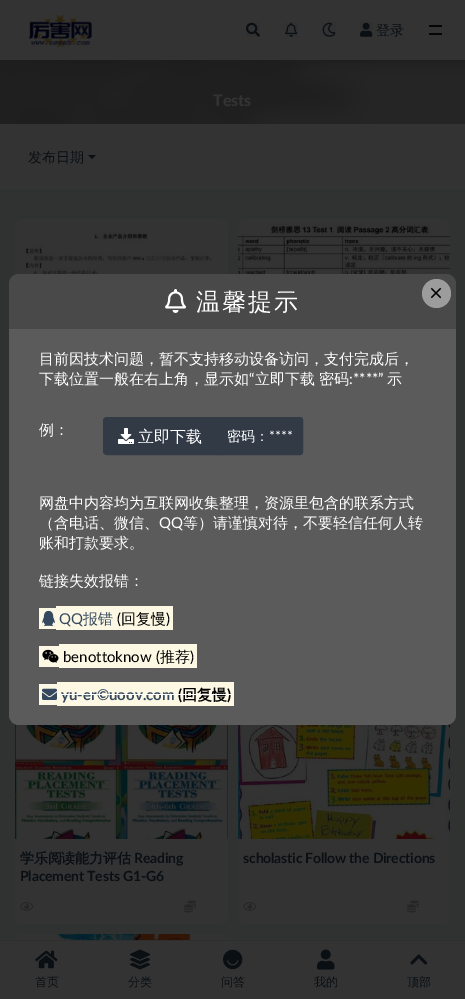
%!PS-Adobe-3.0
%%BoundingBox: 0 0 465 999
%%LanguageLevel: 3
%%Pages: 1
%%EndComments
%%BeginProlog
/m { moveto } bind def
/l { lineto } bind def
/c { curveto } bind def
/h { closepath } bind def
/f { fill } bind def
/S { stroke } bind def
/q { gsave } bind def
/Q { grestore } bind def
/fn { [ exch dup neg 0 0 3 -1 roll 0 0 ] selectfont } def
/tx { moveto show } def
/bx { rectfill } def
/al { dup .setfillconstantalpha .setstrokeconstantalpha } def
/ci { newpath 0 360 arc closepath } def
/rr { 5 dict begin { /r /h /w /y /x } { exch def } forall
  x r add y moveto x w add y 2 copy h add r arct x w add y h add x 1 index r arct
  x y h add x y r arct x y 2 copy exch w add exch r arct closepath end } def
/sh { 12 dict begin { /a /b /q /h /w /y /x } { exch def } forall gsave /was 0 def
  9 -2 -9 { dup b mul 4 div /e exch def 1 sub .425 mul 2.718 exch exp 1 add a .99 .min exch div /now exch def
    1 1 now sub 1 was sub div sub al /was now def
    w h .min e 2 mul add 0 gt { x e sub y e sub w e 2 mul add h e 2 mul add
      q e add b .6 mul add w h .min 2 div e add .min 0 .max rr fill } if } for grestore end } def
/im { 5 dict begin { /h /w /y /x /name } { exch def } forall
  gsave x y translate w h scale
  w h 8 [w 0 0 h 0 0] name (r) file false 3 colorimage grestore end } def
%%EndProlog
%%BeginSetup
<< /PageSize [465 999] /PageUsesTransparency true >> setpagedevice
%%EndSetup
%%Page: 1 1
0 .pushpdf14devicefilter
0 999 translate 1 -1 scale
4 setmiterlimit
0.188 0.192 0.192 setrgbcolor
0 0 465 999 bx
(image5.raw) 0 60 465 64 im
0 setgray
-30 48 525 103 0 10 0.3 sh
0.2 setgray
0 0 465 60 bx
(image0.raw) 28 14 64 34 im
(image1.raw) 246 22 14 15 im
(image2.raw) 285 22 13 15 im
(image3.raw) 322 22 14 15 im
(image4.raw) 360 22 13 15 im
/WenQuanYiZenHei-Medium 14 fn
0.039 0.059 0.075 setrgbcolor
(登录) 376 35 tx
0.02 setgray
429 25 13 2 bx
429 33 13 2 bx
/Lato-Black 16 fn
0.2 setgray
(Tests) 213 106 tx
0 124 465 65 bx
/WenQuanYiZenHei-Medium 14 fn
0.039 0.059 0.075 setrgbcolor
(发布日期) 28 162 tx
88 155 m 96 155 l 92 159 l h f
0.2 setgray
15 219 213 229 8 rr f
(image6.raw) 22 232 198 42 im
238 219 212 229 8 rr f
(image7.raw) 238 224 212 51 im
15 696 213 228 8 rr f
(image8.raw) 15 724 213 115 im
/WenQuanYiZenHei-Bold 14 fn
0.039 0.059 0.075 setrgbcolor
20 863 m -0.2 0 (学乐阅读能力评估) ashow
/Lato-Bold 14 fn
134 863 m -0.2 0 (Reading) ashow
20 881 m -0.2 0 (Placement Tests G1-G6) ashow
(image9.raw) 20 902 14 9 im
(image10.raw) 184 900 12 13 im
0.2 setgray
238 696 212 228 8 rr f
(image11.raw) 238 724 212 115 im
0.039 0.059 0.075 setrgbcolor
243 863 m -0.2 0 (scholastic Follow the Directions) ashow
(image9.raw) 243 902 14 9 im
(image10.raw) 407 900 12 13 im
(image12.raw) 15 934 213 6 im
/WenQuanYiZenHei-Medium 14 fn
0.2 setgray
(英语) 138 264 tx
0.357 setgray
9 274 447 451 10 rr f
0.2 al
0 setgray
19 274 m 446 274 l 451.5 274 456 278.5 456 284 c 456 329 l 9 329 l 9 284 l 9 278.5 13.5 274 19 274 c h f
1 al
(image13.raw) 165 289 21 24 im
/WenQuanYiZenHei-Medium 24 fn
1 setgray
196 310 m 2 0 (温馨提示) ashow
/WenQuanYiZenHei-Medium 15 fn
(目前因技术问题，暂不支持移动设备访问，支付完成后，) 39 364 tx
(下载位置一般在右上角，显示如) 39 384 tx
/Lato-Regular 15 fn
(“) 249 384 tx
/WenQuanYiZenHei-Medium 15 fn
(立即下载 密码) 255 384 tx
/Lato-Regular 15 fn
(:****”) 349 384 tx
/WenQuanYiZenHei-Medium 15 fn
(示) 387 384 tx
(例：) 39 435 tx
0.196 0.227 0.275 setrgbcolor
107 417.5 m 216.5 417.5 l 216.5 454.5 l 107 454.5 l 105 454.5 103.5 453 103.5 451 c 103.5 421 l 103.5 419 105 417.5 107 417.5 c h q f Q
S
(image14.raw) 118 428 16 16 im
/WenQuanYiZenHei-Medium 16 fn
1 setgray
(立即下载) 138 442 tx
0.196 0.227 0.275 setrgbcolor
216.5 417.5 m 300 417.5 l 301.5 417.5 302.5 418.5 302.5 420 c 302.5 452 l 302.5 453.5 301.5 454.5 300 454.5 c 216.5 454.5 l h q f Q
S
/WenQuanYiZenHei-Medium 14 fn
1 setgray
(密码：) 227 441 tx
/Lato-Regular 14 fn
(****) 269 441 tx
/WenQuanYiZenHei-Medium 15 fn
(网盘中内容均为互联网收集整理，资源里包含的联系方式) 39 508 tx
(（含电话、微信、) 39 528 tx
/Lato-Regular 15 fn
(QQ) 159 528 tx
/WenQuanYiZenHei-Medium 15 fn
(等）请谨慎对待，不要轻信任何人转) 183 528 tx
(账和打款要求。) 39 548 tx
(链接失效报错：) 39 586 tx
0.988 0.973 0.89 setrgbcolor
39 608 17 21 bx
56 606 117 24 bx
(image15.raw) 42 610 13 16 im
/Lato-Regular 15 fn
0.204 0.286 0.369 setrgbcolor
(QQ) 59 624 tx
/WenQuanYiZenHei-Medium 15 fn
(报错) 83 624 tx
/Lato-Regular 15 fn
0 setgray
(\() 117 624 tx
/WenQuanYiZenHei-Medium 15 fn
(回复慢) 121 624 tx
/Lato-Regular 15 fn
(\)) 166 624 tx
0.988 0.973 0.89 setrgbcolor
39 646 20 21 bx
59 644 138 24 bx
(image16.raw) 42 649 17 14 im
0 setgray
(benottoknow \() 63 662 tx
/WenQuanYiZenHei-Medium 15 fn
(推荐) 160 662 tx
/Lato-Regular 15 fn
(\)) 190 662 tx
0.988 0.973 0.89 setrgbcolor
39 684 18 21 bx
57 682 177 24 bx
(image17.raw) 42 688 15 12 im
/Lato-Bold 15 fn
0.204 0.286 0.369 setrgbcolor
(yu-er©uoov.com) 61 700 tx
1 setgray
57 694 121 1 bx
0 setgray
(\() 178 700 tx
/WenQuanYiZenHei-Bold 15 fn
(回复慢) 182 700 tx
/Lato-Bold 15 fn
(\)) 227 700 tx
1 setgray
178 694 53 1 bx
0.5 al
0.937 setgray
436.5 293.5 14.5 ci f
/LiberationSans-Regular 24 fn
1 al
0 setgray
(×) 429 301 tx
0.2 setgray
0 940 465 59 bx
0.18 setgray
0 940 465 1 0.5 rr f
(image18.raw) 35 950 23 19 im
/WenQuanYiZenHei-Medium 12 fn
0.039 0.059 0.075 setrgbcolor
(首页) 35 986 tx
(image19.raw) 130 949 20 21 im
(分类) 128 986 tx
(image20.raw) 223 949 20 21 im
(问答) 221 986 tx
(image21.raw) 317 949 18 21 im
(我的) 314 986 tx
(image22.raw) 410 954 18 11 im
(顶部) 407 986 tx
.poppdf14devicefilter showpage
%%EOF
